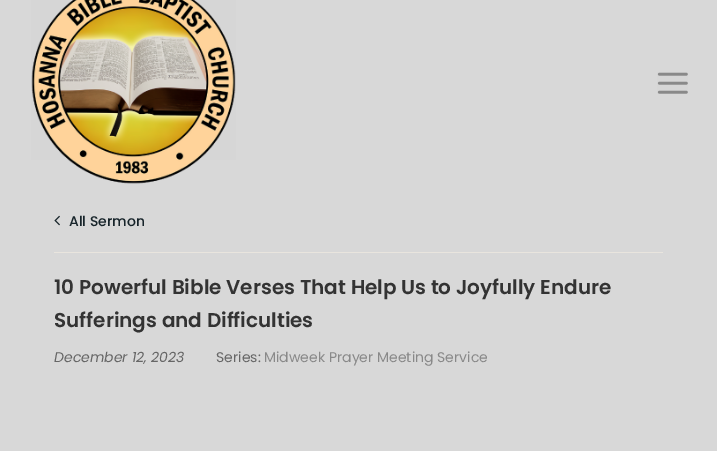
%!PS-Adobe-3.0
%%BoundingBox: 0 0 717 451
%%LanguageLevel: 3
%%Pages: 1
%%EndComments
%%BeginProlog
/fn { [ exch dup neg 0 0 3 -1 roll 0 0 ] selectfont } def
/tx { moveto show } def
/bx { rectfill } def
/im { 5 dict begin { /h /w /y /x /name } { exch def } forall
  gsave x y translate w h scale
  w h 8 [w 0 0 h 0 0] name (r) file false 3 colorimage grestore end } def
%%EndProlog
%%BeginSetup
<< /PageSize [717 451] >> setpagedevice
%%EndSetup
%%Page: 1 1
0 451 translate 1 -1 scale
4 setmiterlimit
0.847 setgray
0 0 717 451 bx
(image0.raw) 31 0 205 184 im
(image1.raw) 657 72 31 22 im
0.914 0.898 0.871 setrgbcolor
54 252 609 1 bx
(image2.raw) 54 215 6 11 im
/Poppins-Medium 14 fn
0.09 0.141 0.165 setrgbcolor
(All Sermon) 69 226 tx
/Poppins-SemiBold 20 fn
0.2 setgray
(10 Powerful Bible Verses That Help Us to Joyfully Endure) 54 294 tx
(Sufferings and Difficulties) 54 327 tx
/Poppins-Italic 14 fn
0.4 setgray
(December 12, 2023) 54 362 tx
/Poppins-Regular 14 fn
(Series:) 216 362 tx
0.537 setgray
(Midweek Prayer Meeting Service) 264 362 tx
showpage
%%EOF
